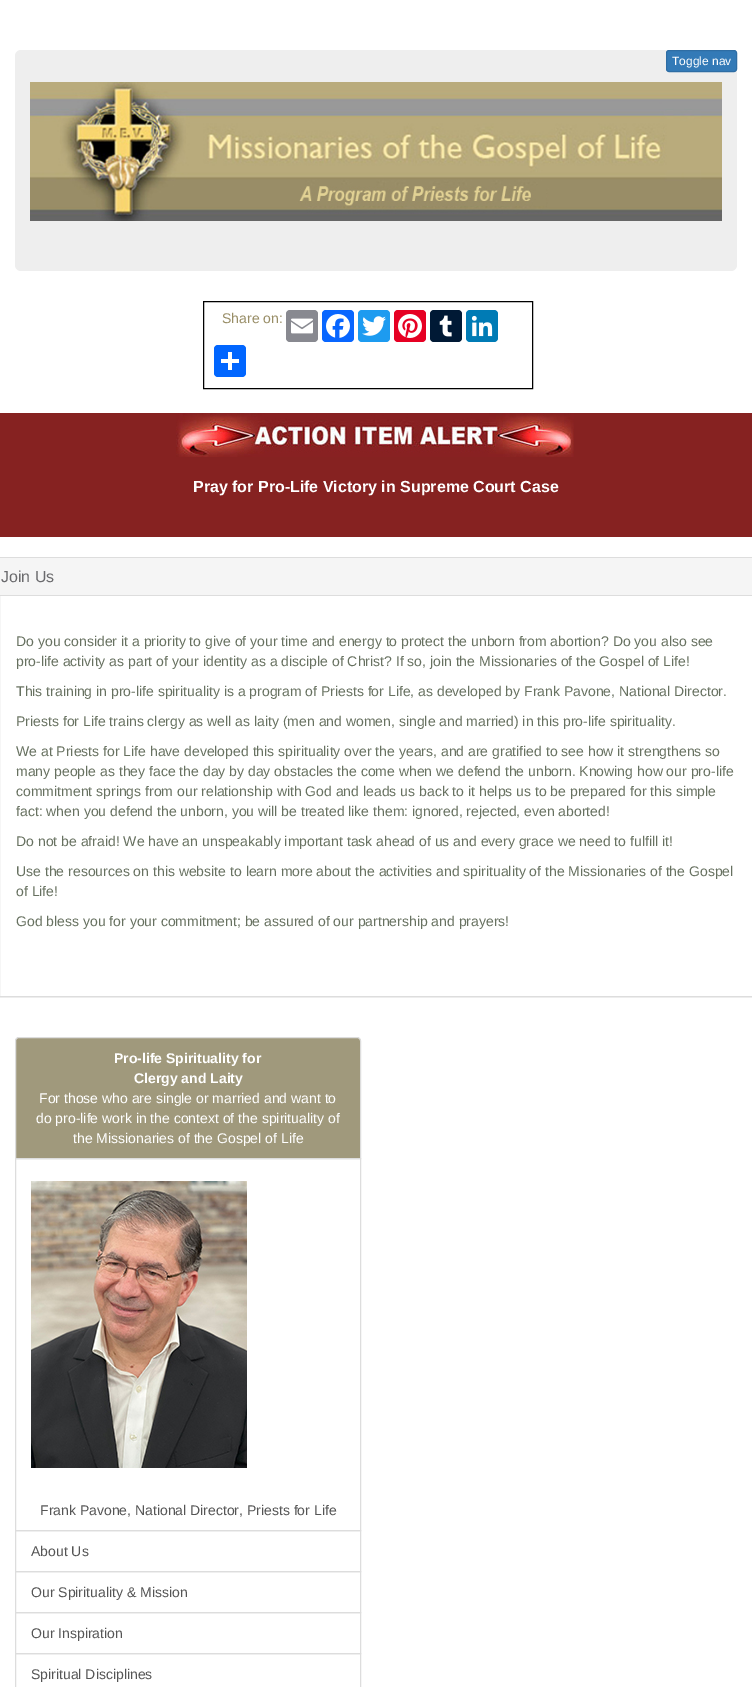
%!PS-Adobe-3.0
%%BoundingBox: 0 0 752 1687
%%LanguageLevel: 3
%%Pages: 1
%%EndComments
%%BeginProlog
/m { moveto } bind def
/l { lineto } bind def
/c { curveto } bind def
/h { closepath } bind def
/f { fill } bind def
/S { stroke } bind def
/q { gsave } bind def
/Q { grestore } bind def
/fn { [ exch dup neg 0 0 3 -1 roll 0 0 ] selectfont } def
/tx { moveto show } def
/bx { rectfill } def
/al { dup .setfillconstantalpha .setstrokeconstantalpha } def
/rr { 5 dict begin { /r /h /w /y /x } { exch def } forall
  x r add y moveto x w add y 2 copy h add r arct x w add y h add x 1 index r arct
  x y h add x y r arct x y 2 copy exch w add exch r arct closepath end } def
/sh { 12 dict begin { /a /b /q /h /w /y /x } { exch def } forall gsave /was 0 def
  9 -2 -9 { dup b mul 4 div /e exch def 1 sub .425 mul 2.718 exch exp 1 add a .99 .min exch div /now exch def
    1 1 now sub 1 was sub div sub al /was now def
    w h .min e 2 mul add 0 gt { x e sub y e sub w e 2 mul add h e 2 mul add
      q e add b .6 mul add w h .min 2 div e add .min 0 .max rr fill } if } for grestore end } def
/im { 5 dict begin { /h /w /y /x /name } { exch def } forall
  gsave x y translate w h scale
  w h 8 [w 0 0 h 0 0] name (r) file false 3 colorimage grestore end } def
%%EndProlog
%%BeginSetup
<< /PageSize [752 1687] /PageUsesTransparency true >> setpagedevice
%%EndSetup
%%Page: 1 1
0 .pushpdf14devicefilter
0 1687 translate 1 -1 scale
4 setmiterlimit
1 setgray
0 0 752 1687 bx
0.933 setgray
15 50 722 221 6 rr f
(image0.raw) 30 82 692 139 im
0.2 0.478 0.718 setrgbcolor
666.5 50.5 70 21 2.5 rr q f Q
0.18 0.427 0.643 setrgbcolor
S
/LiberationSans-Regular 12 fn
1 setgray
(Toggle nav) 672 65 tx
0 setgray
203.5 301.5 329 87 rectstroke
/LiberationSans-Regular 14 fn
0.596 0.553 0.4 setrgbcolor
(Share on:) 222 323 tx
0.533 0.537 0.565 setrgbcolor
286 310 32 32 4 rr f
(image1.raw) 291 318 22 16 im
0.031 0.4 1 setrgbcolor
322 310 32 32 4 rr f
(image2.raw) 326 314 24 24 im
0.114 0.608 0.941 setrgbcolor
358 310 32 32 4 rr f
(image3.raw) 362 316 24 20 im
0.902 0 0.137 setrgbcolor
394 310 32 32 4 rr f
(image4.raw) 398 314 24 24 im
0 0.098 0.208 setrgbcolor
430 310 32 32 4 rr f
(image5.raw) 439 315 13 22 im
0 0.482 0.71 setrgbcolor
466 310 32 32 4 rr f
(image6.raw) 471 315 22 22 im
0.004 0.4 1 setrgbcolor
214 345 32 32 4 rr f
1 setgray
228 352 4 18 bx
221 359 18 4 bx
0.525 0.133 0.129 setrgbcolor
0 413 752 124 bx
(image7.raw) 176 413 398 44 im
/LiberationSans-Bold 16 fn
1 setgray
(Pray for Pro-Life Victory in Supreme Court Case) 193 492 tx
q
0 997 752 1 rectclip
0 setgray
-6 558 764 440 4 0.5 0.05 sh
Q
0.867 setgray
-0.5 557.5 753 439 rectstroke
0.961 setgray
0 558 752 37 bx
0.867 setgray
0 595 752 1 bx
/LiberationSans-Regular 16 fn
0.416 0.416 0.427 setrgbcolor
(Join Us) 1 582 tx
/LiberationSans-Regular 14 fn
0.404 0.443 0.376 setrgbcolor
(Do you consider it a priority to give of your time and energy to protect the unborn from abortion? Do you also see) 16 646 tx
(pro-life activity as part of your identity as a disciple of Christ? If so, join the Missionaries of the Gospel of Life!) 16 666 tx
(This training in pro-life spirituality is a program of Priests for Life, as developed by Frank Pavone, National Director.) 16 696 tx
(Priests for Life trains clergy as well as laity \(men and women, single and married\) in this pro-life spirituality.) 16 726 tx
(We at Priests for Life have developed this spirituality over the years, and are gratified to see how it strengthens so) 16 756 tx
(many people as they face the day by day obstacles the come when we defend the unborn. Knowing how our pro-life) 16 776 tx
(commitment springs from our relationship with God and leads us back to it helps us to be prepared for this simple) 16 796 tx
(fact: when you defend the unborn, you will be treated like them: ignored, rejected, even aborted!) 16 816 tx
(Do not be afraid! We have an unspeakably important task ahead of us and every grace we need to fulfill it!) 16 846 tx
(Use the resources on this website to learn more about the activities and spirituality of the Missionaries of the Gospel) 16 876 tx
(of Life!) 16 896 tx
(God bless you for your commitment; be assured of our partnership and prayers!) 16 926 tx
0.627 0.6 0.486 setrgbcolor
19 1037.5 m 357 1037.5 l 359 1037.5 360.5 1039 360.5 1041 c 360.5 1158.5 l 15.5 1158.5 l 15.5 1041 l 15.5 1039 17 1037.5 19 1037.5 c h q f Q
0.867 setgray
S
/LiberationSans-Bold 14 fn
1 setgray
(Pro-life Spirituality for) 114 1063 tx
(Clergy and Laity) 134 1083 tx
/LiberationSans-Regular 14 fn
(For those who are single or married and want to) 39 1103 tx
(do pro-life work in the context of the spirituality of) 36 1123 tx
(the Missionaries of the Gospel of Life) 73 1143 tx
0.867 setgray
15.5 1158.5 345 372 rectstroke
(image8.raw) 31 1181 216 287 im
0.333 setgray
(Frank Pavone, National Director, Priests for Life) 40 1515 tx
0.867 setgray
15.5 1530.5 345 41 rectstroke
0.333 setgray
(About Us) 31 1556 tx
0.867 setgray
15.5 1571.5 345 41 rectstroke
0.333 setgray
(Our Spirituality & Mission) 31 1597 tx
0.867 setgray
15.5 1612.5 345 41 rectstroke
0.333 setgray
(Our Inspiration) 31 1638 tx
0.867 setgray
15.5 1653.5 345 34 rectstroke
0.333 setgray
(Spiritual Disciplines) 31 1679 tx
.poppdf14devicefilter showpage
%%EOF
